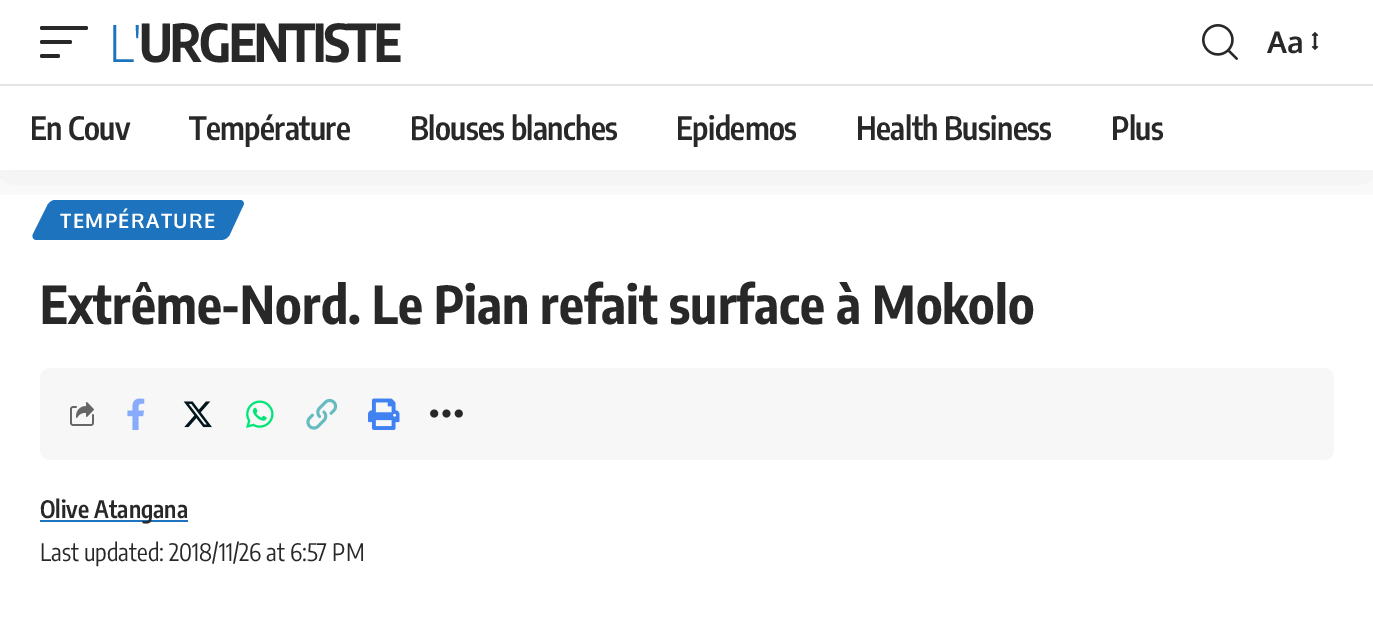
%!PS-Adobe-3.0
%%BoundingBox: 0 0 1373 639
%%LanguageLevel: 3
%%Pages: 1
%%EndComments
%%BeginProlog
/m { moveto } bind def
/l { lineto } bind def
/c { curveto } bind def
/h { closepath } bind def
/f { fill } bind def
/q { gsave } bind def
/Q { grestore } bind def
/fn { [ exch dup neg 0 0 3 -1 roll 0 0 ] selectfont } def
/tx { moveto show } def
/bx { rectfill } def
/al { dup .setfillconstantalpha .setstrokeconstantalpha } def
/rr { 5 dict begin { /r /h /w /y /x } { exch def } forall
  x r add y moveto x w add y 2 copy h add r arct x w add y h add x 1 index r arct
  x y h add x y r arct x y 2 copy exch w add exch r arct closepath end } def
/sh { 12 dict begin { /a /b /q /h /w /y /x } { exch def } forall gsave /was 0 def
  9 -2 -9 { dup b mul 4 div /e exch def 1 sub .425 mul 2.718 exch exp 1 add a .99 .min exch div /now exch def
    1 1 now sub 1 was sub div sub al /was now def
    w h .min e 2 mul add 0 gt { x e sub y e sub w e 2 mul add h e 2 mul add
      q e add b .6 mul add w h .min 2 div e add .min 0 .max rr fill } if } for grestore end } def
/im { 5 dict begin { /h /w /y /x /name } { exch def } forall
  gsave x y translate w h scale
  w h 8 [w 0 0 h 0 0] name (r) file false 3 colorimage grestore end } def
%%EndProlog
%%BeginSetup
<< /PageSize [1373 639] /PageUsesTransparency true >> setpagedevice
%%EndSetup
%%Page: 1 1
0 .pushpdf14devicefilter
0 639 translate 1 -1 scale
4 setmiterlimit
1 setgray
0 0 1373 639 bx
0.118 0.451 0.745 setrgbcolor
55 200 m 240 200 l 243 200 245 203 243 206 c 230 234 l 229 237 225 240 221 240 c 37 240 l 33 240 32 237 33 234 c 47 206 l 48 203 52 200 55 200 c h f
q
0 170 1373 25 rectclip
0 setgray
0 8 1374 170 0 30 0.07 sh
Q
0.157 setgray
40 26 48 4 2 rr f
40 40 32 4 2 rr f
40 54 20 4 2 rr f
/NotoSans-Light 52 fn
0.118 0.451 0.745 setrgbcolor
108 62 m -2.6 0 (L') ashow
/EncodeSansCondensed-Bold 52 fn
0.157 setgray
139 62 m -2.6 0 (URGENTISTE) ashow
(image0.raw) 1202 24 36 36 im
/Oxygen-Bold 30 fn
(Aa) 1267 53 tx
(image1.raw) 1311 32 8 18 im
0.894 setgray
0 84 1373 2 bx
/EncodeSansCondensed-SemiBold 32 fn
0.157 setgray
30 140 m -0.6 0 (En Couv) ashow
189 140 m -0.6 0 (Température) ashow
410 140 m -0.6 0 (Blouses blanches) ashow
676 140 m -0.6 0 (Epidemos) ashow
856 140 m -0.6 0 (Health Business) ashow
1111 140 m -0.6 0 (Plus) ashow
/Oxygen-Bold 20 fn
1 setgray
60 228 m 1.4 0 (TEMPÉRATURE) ashow
/EncodeSansCondensed-Bold 52 fn
0.157 setgray
(Extrême-Nord. Le Pian refait surface à Mokolo) 40 324 tx
0.969 setgray
40 368 1294 92 10 rr f
(image2.raw) 70 402 24 24 im
(image3.raw) 127 398 18 32 im
(image4.raw) 183 401 29 27 im
(image5.raw) 246 400 28 28 im
(image6.raw) 306 398 32 32 im
(image7.raw) 368 398 32 32 im
(image8.raw) 430 409 33 9 im
0.118 0.451 0.745 setrgbcolor
40 520 148 2 bx
/EncodeSansCondensed-SemiBold 24 fn
0.157 setgray
(Olive Atangana) 40 518 tx
/EncodeSansCondensed-Regular 24 fn
(Last updated: 2018/11/26 at 6:57 PM) 40 561 tx
.poppdf14devicefilter showpage
%%EOF
